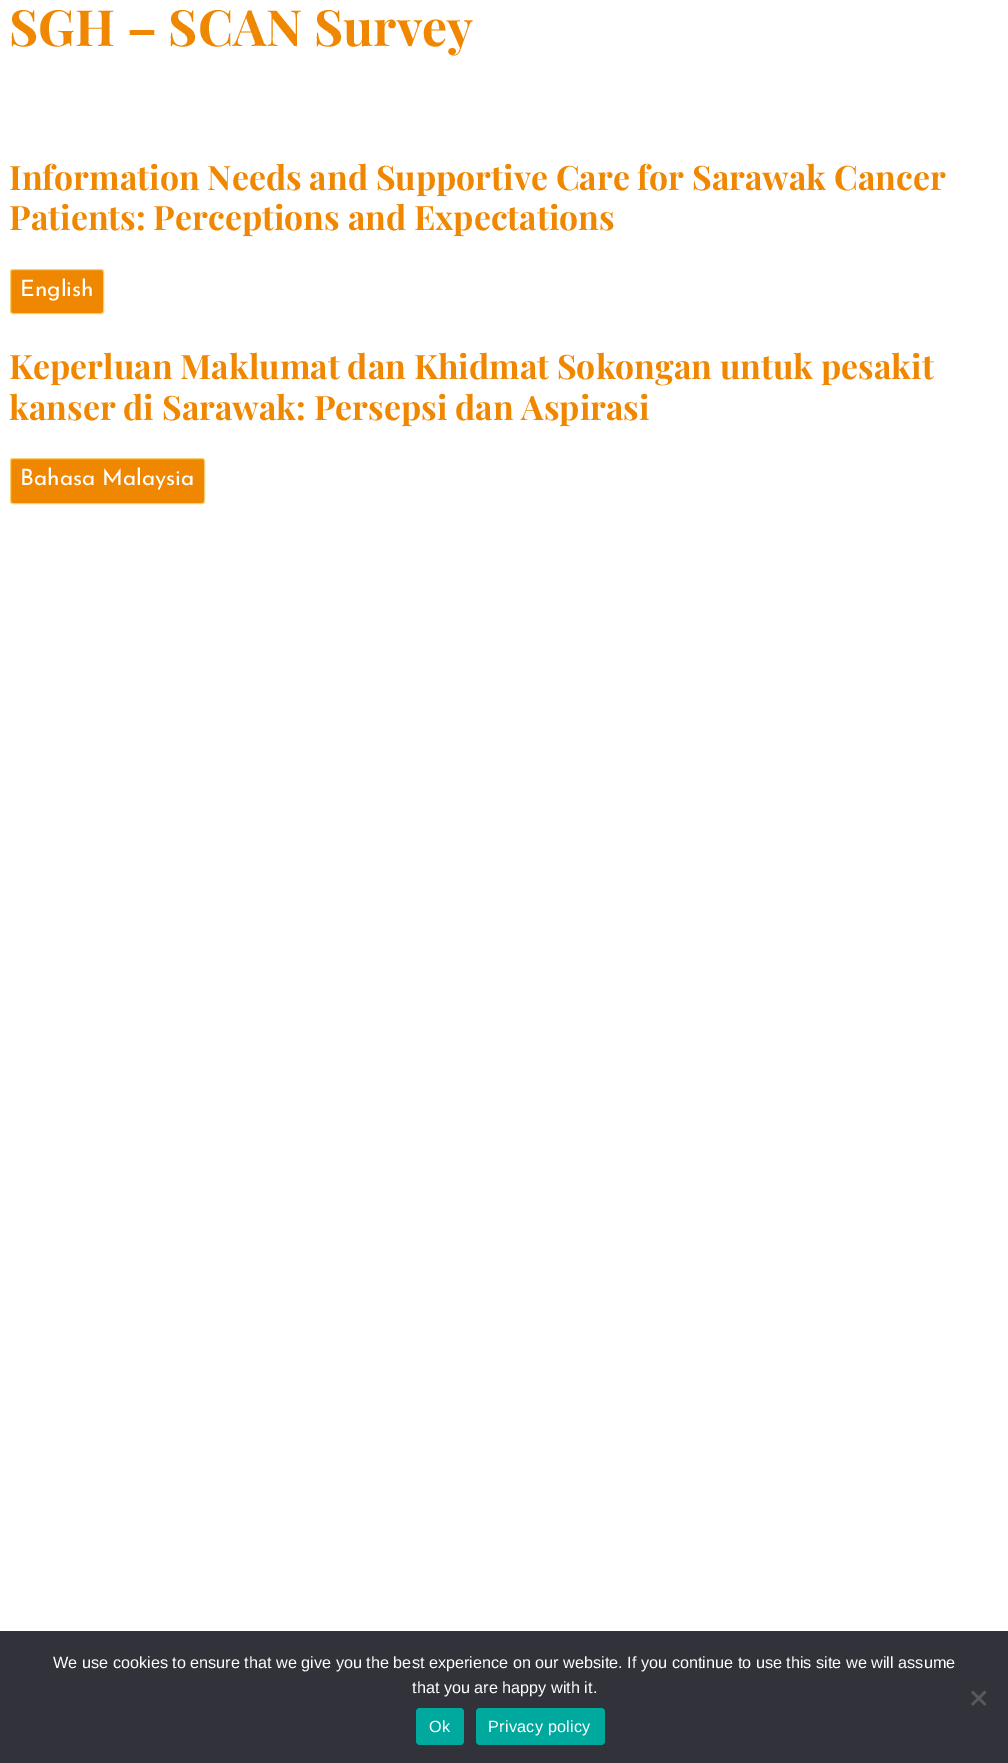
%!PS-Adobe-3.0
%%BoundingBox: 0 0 1008 1763
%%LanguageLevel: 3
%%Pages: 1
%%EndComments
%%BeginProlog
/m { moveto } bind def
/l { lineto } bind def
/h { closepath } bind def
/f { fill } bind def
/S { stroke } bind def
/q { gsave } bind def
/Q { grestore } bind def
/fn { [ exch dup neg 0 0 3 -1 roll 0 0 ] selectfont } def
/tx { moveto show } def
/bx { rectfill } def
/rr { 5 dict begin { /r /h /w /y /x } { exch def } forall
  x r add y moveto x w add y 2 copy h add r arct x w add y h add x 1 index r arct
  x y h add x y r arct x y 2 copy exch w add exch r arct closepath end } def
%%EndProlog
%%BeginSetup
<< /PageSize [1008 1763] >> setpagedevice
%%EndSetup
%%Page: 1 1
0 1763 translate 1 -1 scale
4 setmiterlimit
1 setgray
0 0 1008 1763 bx
/PlayfairDisplay-Bold 50 fn
0.941 0.529 0 setrgbcolor
(SGH – SCAN Survey) 9 46 tx
/PlayfairDisplay-Bold 33.75 fn
(Information Needs and Supportive Care for Sarawak Cancer) 9 190 tx
(Patients: Perceptions and Expectations) 9 230 tx
10.5 269.5 93 44 2.5 rr q f Q
0.957 0.816 0.435 setrgbcolor
S
/JosefinSans-Regular 22.5 fn
1 setgray
(English) 20 296 tx
/PlayfairDisplay-Bold 33.75 fn
0.941 0.529 0 setrgbcolor
(Keperluan Maklumat dan Khidmat Sokongan untuk pesakit) 9 379 tx
(kanser di Sarawak: Persepsi dan Aspirasi) 9 420 tx
10.5 458.5 194 45 2.5 rr q f Q
0.957 0.816 0.435 setrgbcolor
S
/JosefinSans-Regular 22.5 fn
1 setgray
(Bahasa Malaysia) 20 485 tx
0.196 0.196 0.227 setrgbcolor
0 1631 1008 132 bx
/LiberationSans-Regular 16.25 fn
1 setgray
(We use cookies to ensure that we give you the best experience on our website. If you continue to use this site we will assume) 53 1668 tx
(that you are happy with it.) 412 1693 tx
0.349 0.349 0.365 setrgbcolor
984.5 1690.5 m 986.5 1692.5 l 973 1705.5 l 971 1704 l h f
971 1692.5 m 973 1690.5 l 986.5 1704 l 984.5 1705.5 l h f
0 0.663 0.616 setrgbcolor
416 1708 48 37 4 rr f
1 setgray
429 1732 m 0.25 0 (Ok) ashow
0 0.663 0.616 setrgbcolor
476 1708 129 37 4 rr f
1 setgray
488 1732 m 0.25 0 (Privacy policy) ashow
showpage
%%EOF
